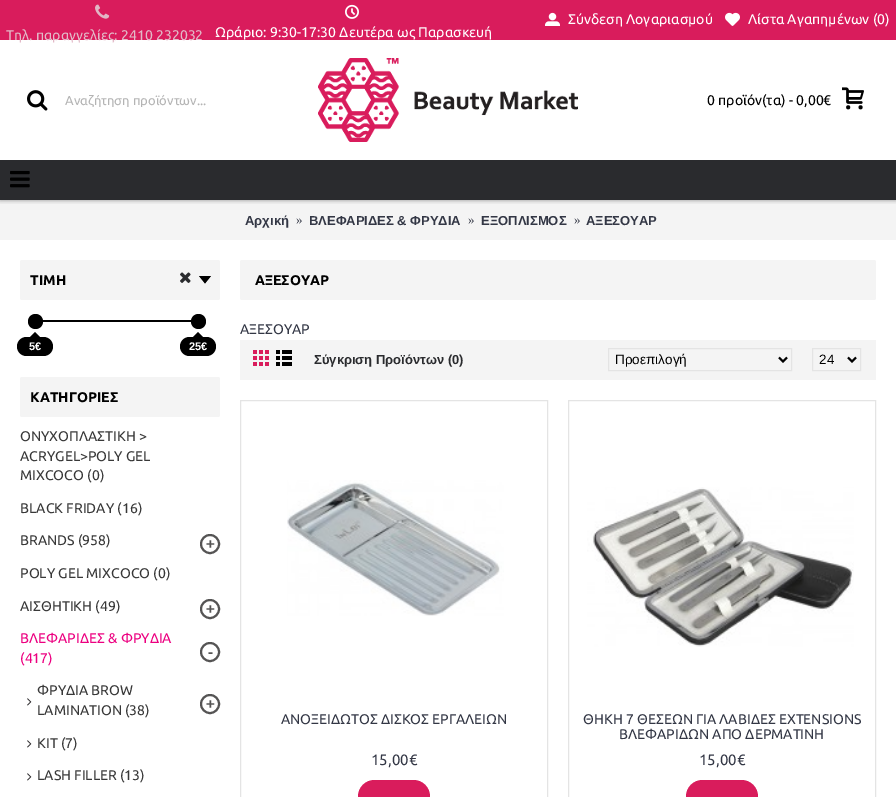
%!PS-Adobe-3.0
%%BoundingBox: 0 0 896 797
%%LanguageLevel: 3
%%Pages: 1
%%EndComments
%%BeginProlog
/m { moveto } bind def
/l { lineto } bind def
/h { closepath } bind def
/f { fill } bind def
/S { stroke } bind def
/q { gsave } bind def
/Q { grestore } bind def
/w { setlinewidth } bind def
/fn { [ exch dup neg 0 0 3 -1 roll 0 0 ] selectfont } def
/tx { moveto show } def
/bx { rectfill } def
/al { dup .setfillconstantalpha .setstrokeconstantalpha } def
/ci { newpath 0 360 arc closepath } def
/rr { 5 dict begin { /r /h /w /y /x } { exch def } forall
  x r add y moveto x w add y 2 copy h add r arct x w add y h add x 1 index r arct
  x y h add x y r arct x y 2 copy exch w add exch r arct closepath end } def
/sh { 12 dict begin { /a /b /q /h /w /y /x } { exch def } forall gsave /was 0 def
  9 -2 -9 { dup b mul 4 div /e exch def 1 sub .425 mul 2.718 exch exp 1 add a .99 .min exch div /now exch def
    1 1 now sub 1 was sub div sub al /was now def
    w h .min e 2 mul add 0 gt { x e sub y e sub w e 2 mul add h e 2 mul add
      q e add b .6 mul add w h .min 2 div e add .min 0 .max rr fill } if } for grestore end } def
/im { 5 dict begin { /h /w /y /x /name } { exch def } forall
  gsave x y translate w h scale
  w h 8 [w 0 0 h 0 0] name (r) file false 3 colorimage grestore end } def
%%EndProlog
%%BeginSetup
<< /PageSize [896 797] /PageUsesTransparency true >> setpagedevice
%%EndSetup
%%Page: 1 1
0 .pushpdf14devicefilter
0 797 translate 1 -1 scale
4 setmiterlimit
1 setgray
0 0 896 797 bx
0.957 setgray
0 200 896 40 bx
q
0 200 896 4 rectclip
0 setgray
0 0 896 200 0 2.5 0.4 sh
Q
0.851 0.11 0.361 setrgbcolor
0 0 896 40 bx
(image0.raw) 545 12 15 14 im
/Ubuntu-Regular 14 fn
1 setgray
(Σύνδεση Λογαριασμού) 568 24 tx
(image1.raw) 725 12 15 14 im
(Λίστα Αγαπημένων \(0\)) 748 24 tx
(image2.raw) 95 4 15 15 im
0.886 0.725 0.78 setrgbcolor
(Τηλ. παραγγελίες: 2410 232032) 6 40 tx
(image3.raw) 345 4 14 15 im
1 setgray
(Ωράριο: 9:30-17:30 Δευτέρα ως Παρασκευή) 215 37 tx
(image4.raw) 27 90 21 21 im
q
65 93 159 14 rectclip
/Ubuntu-Regular 13 fn
0.706 setgray
(Αναζήτηση προϊόντων...) 65 105 tx
Q
(image5.raw) 318 58 260 84 im
0 setgray
(0 προϊόν\(τα\) - 0,00€) 707 105 tx
(image6.raw) 842 87 22 23 im
0.165 0.169 0.18 setrgbcolor
0 160 896 40 bx
(image7.raw) 10 171 20 17 im
/LiberationSans-Bold 13 fn
0.2 0.216 0.271 setrgbcolor
(Αρχική) 245 225 tx
/LiberationSerif-Regular 13 fn
(») 296 224 tx
/LiberationSans-Bold 13 fn
(ΒΛΕΦΑΡΙΔΕΣ & ΦΡΥΔΙΑ) 309 225 tx
/LiberationSerif-Regular 13 fn
(») 468 224 tx
/LiberationSans-Bold 13 fn
(ΕΞΟΠΛΙΣΜΟΣ) 481 225 tx
/LiberationSerif-Regular 13 fn
(») 574 224 tx
/LiberationSans-Bold 13 fn
(ΑΞΕΣΟΥΑΡ) 586 225 tx
0.957 setgray
20 260 200 40 2 rr f
(image8.raw) 180 272 11 11 im
/Ubuntu-Bold 14 fn
0 setgray
(ΤΙΜΗ) 30 285 tx
211 276 m 199 276 l 205 283.5 l h f
37 320 163 2 bx
35.5 321.5 7.5 ci f
17 337 36 19 9.5 rr f
42 339 m 28 339 l 35 332 l h f
/LiberationSans-Bold 11 fn
1 setgray
(5€) 29 350 tx
0 setgray
198.5 321.5 7.5 ci f
180 337 36 19 9.5 rr f
205 339 m 191 339 l 198 332 l h f
1 setgray
(25€) 189 350 tx
0.957 setgray
20 377 200 40 2 rr f
/Ubuntu-Bold 14 fn
0 setgray
(ΚΑΤΗΓΟΡΙΕΣ) 30 402 tx
/Ubuntu-Regular 14 fn
0.22 setgray
(ΟΝΥΧΟΠΛΑΣΤΙΚΗ >) 20 441 tx
(ACRYGEL>POLY GEL) 20 461 tx
(MIXCOCO \(0\)) 20 480 tx
(BLACK FRIDAY \(16\)) 20 513 tx
(BRANDS \(958\)) 20 545 tx
0.333 0.329 0.329 setrgbcolor
2 w
210 544 9 ci S
/LiberationSans-Bold 15 fn
(+) 206 549 tx
/Ubuntu-Regular 14 fn
0.22 setgray
(POLY GEL MIXCOCO \(0\)) 20 578 tx
(ΑΙΣΘΗΤΙΚΗ \(49\)) 20 611 tx
0.333 0.329 0.329 setrgbcolor
210 609 9 ci S
/LiberationSans-Bold 15 fn
(+) 206 614 tx
/Ubuntu-Regular 14 fn
0.925 0 0.502 setrgbcolor
(ΒΛΕΦΑΡΙΔΕΣ & ΦΡΥΔΙΑ) 20 643 tx
(\(417\)) 20 663 tx
0.333 0.329 0.329 setrgbcolor
210 652 9 ci S
/LiberationSans-Bold 15 fn
(-) 208 657 tx
(image9.raw) 27 698 5 8 im
/Ubuntu-Regular 14 fn
0.22 setgray
(ΦΡΥΔΙΑ BROW) 37 695 tx
(LAMINATION \(38\)) 37 715 tx
0.333 0.329 0.329 setrgbcolor
210 704 9 ci S
/LiberationSans-Bold 15 fn
(+) 206 709 tx
(image9.raw) 27 740 5 8 im
/Ubuntu-Regular 14 fn
0.22 setgray
(KIT \(7\)) 37 748 tx
(image9.raw) 27 773 5 8 im
(LASH FILLER \(13\)) 37 780 tx
0.957 setgray
240 260 636 40 2 rr f
/Ubuntu-Bold 14 fn
0 setgray
(ΑΞΕΣΟΥΑΡ) 255 285 tx
/Ubuntu-Regular 14 fn
0.2 0.216 0.271 setrgbcolor
(ΑΞΕΣΟΥΑΡ) 240 334 tx
0.957 setgray
240 340 636 40 bx
(image10.raw) 253 350 16 16 im
(image11.raw) 276 350 16 16 im
/LiberationSans-Bold 13 fn
0.165 0.169 0.18 setrgbcolor
(Σύγκριση Προϊόντων \(0\)) 314 364 tx
0.894 setgray
1 w
608.5 348.5 183 22 rectstroke
0 setgray
2 w
779 357.5 m 783 361.5 l 787 357.5 l S
/LiberationSans-Regular 13.5 fn
(Προεπιλογή) 615 364 tx
0.894 setgray
1 w
812.5 348.5 48 22 rectstroke
0 setgray
2 w
848 357.5 m 852 361.5 l 856 357.5 l S
(24) 819 364 tx
0.894 setgray
1 w
240.5 400.5 307 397 rectstroke
(image12.raw) 287 480 217 136 im
/Ubuntu-Regular 14 fn
0.2 0.216 0.271 setrgbcolor
(ΑΝΟΞΕΙΔΩΤΟΣ ΔΙΣΚΟΣ ΕΡΓΑΛΕΙΩΝ) 281 724 tx
/Ubuntu-Regular 15 fn
(15,00€) 371 765 tx
0.851 0.11 0.361 setrgbcolor
358 780 72 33 16.5 rr f
0.894 setgray
568.5 400.5 307 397 rectstroke
(image13.raw) 587 487 267 160 im
/Ubuntu-Regular 14 fn
0.2 0.216 0.271 setrgbcolor
(ΘΗΚΗ 7 ΘΕΣΕΩΝ ΓΙΑ ΛΑΒΙΔΕΣ EXTENSIONS) 583 724 tx
(ΒΛΕΦΑΡΙΔΩΝ ΑΠΟ ΔΕΡΜΑΤΙΝΗ) 619 739 tx
/Ubuntu-Regular 15 fn
(15,00€) 699 765 tx
0.851 0.11 0.361 setrgbcolor
686 780 72 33 16.5 rr f
.poppdf14devicefilter showpage
%%EOF
